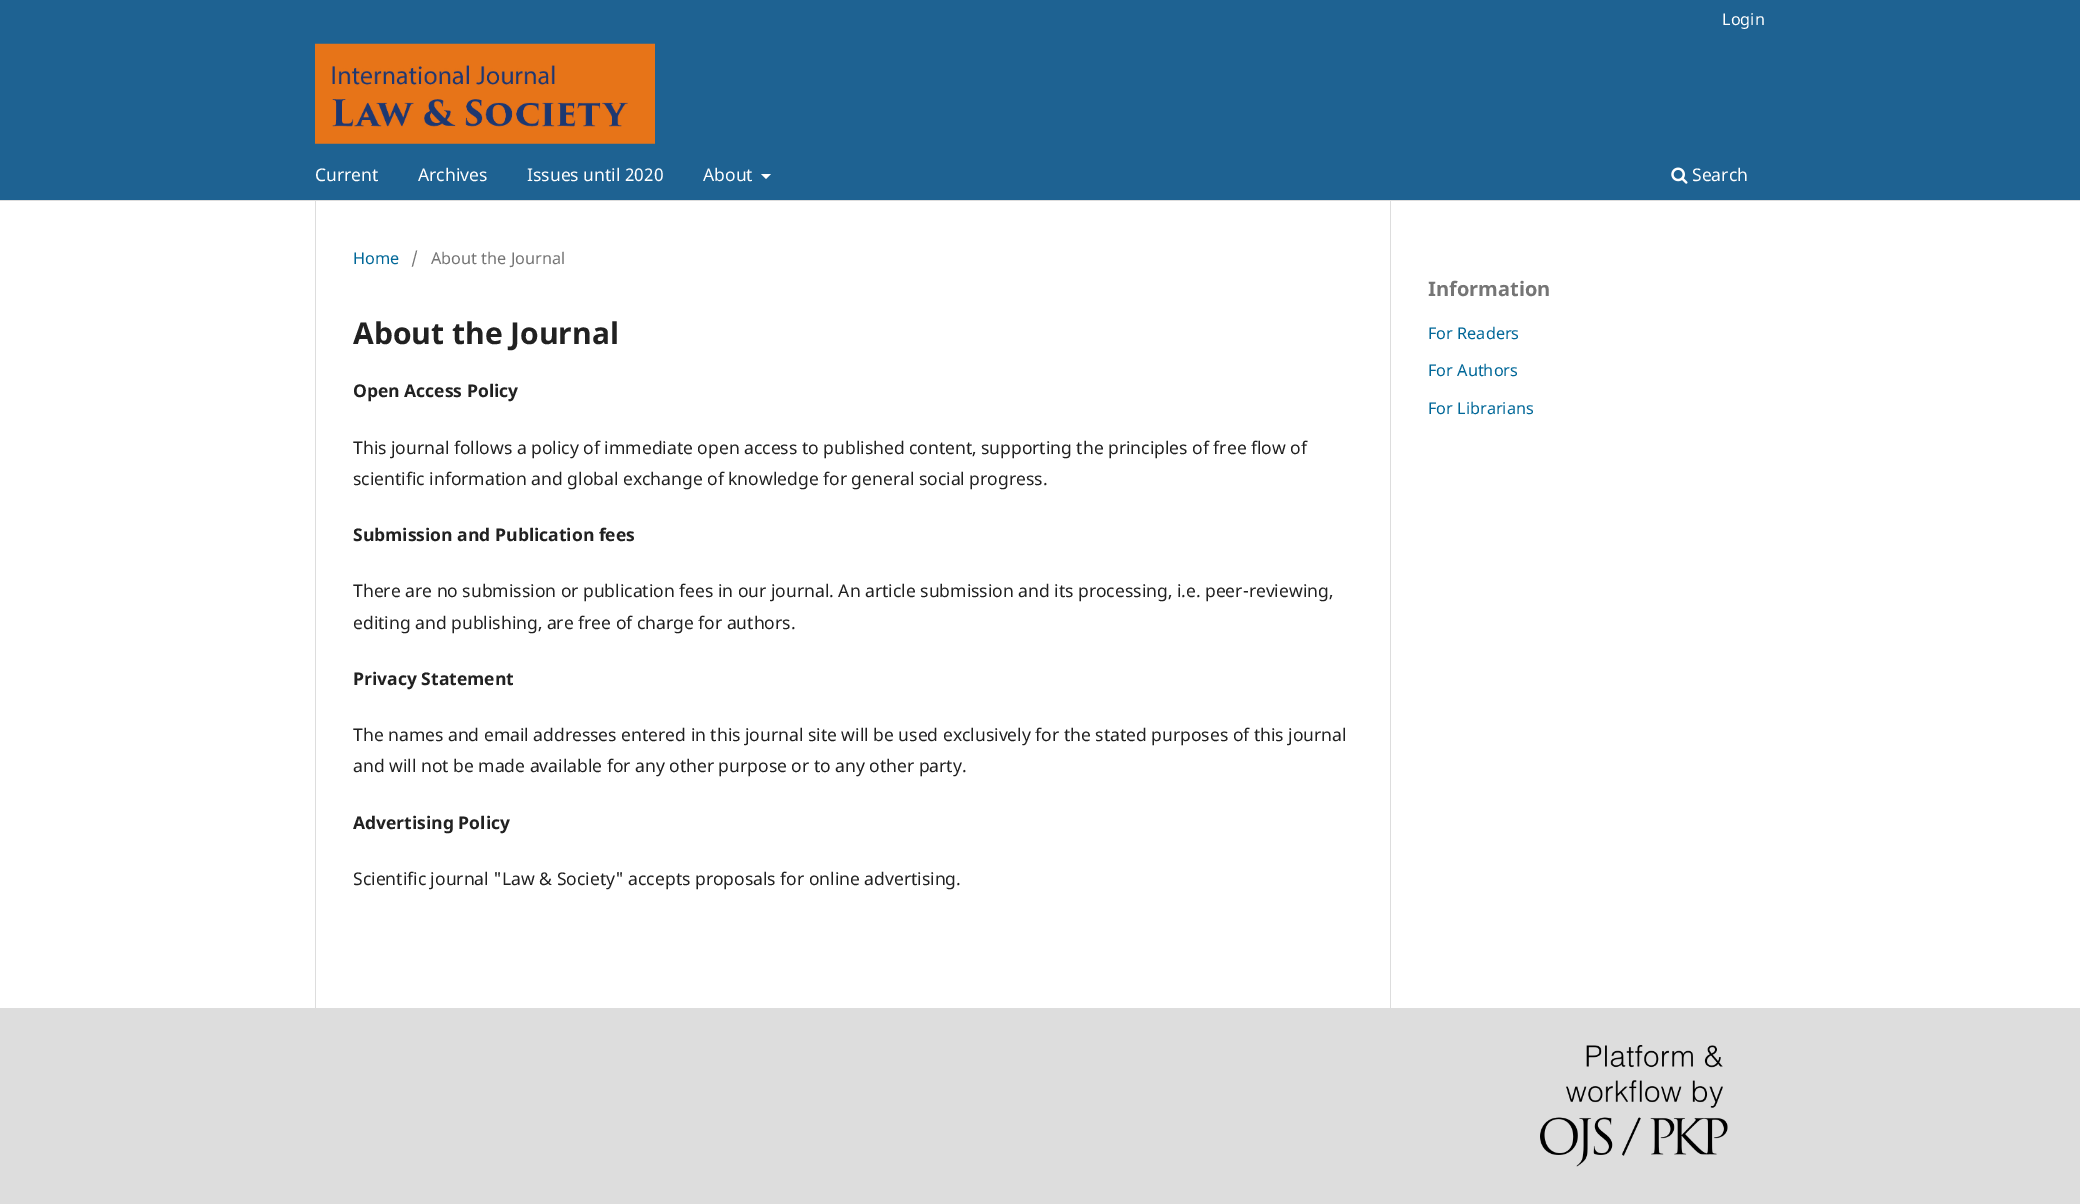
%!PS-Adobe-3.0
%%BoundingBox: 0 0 2080 1204
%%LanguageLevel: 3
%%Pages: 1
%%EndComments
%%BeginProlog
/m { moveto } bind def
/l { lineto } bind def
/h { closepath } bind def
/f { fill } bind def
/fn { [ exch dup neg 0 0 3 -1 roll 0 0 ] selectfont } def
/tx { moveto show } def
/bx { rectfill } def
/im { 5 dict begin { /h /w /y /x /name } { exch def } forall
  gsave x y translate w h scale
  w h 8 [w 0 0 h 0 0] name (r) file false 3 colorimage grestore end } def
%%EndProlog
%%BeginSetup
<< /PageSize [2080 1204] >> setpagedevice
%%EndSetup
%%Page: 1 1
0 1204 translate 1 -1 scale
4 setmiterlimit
1 setgray
0 0 2080 1204 bx
0.118 0.384 0.573 setrgbcolor
0 0 2080 200 bx
0.867 setgray
0 200 2080 1 bx
/NotoSans-Regular 16.25 fn
1 setgray
(Login) 1722 25 tx
/NotoSans-Regular 17.5 fn
(Current) 315 181 tx
(Archives) 418 181 tx
(Issues until 2020) 527 181 tx
(About) 703 181 tx
761 174 m 771 174 l 766 179 l h f
(image0.raw) 1671 167 17 17 im
(Search) 1692 181 tx
(image1.raw) 315 43 340 101 im
0.867 setgray
315 201 1 807 bx
/NotoSans-Regular 16.25 fn
0 0.404 0.596 setrgbcolor
(Home) 353 264 tx
0.459 setgray
(/) 411 264 tx
(About the Journal) 431 264 tx
/NotoSans-Bold 30 fn
0.129 setgray
(About the Journal) 353 344 tx
/NotoSans-Bold 17.5 fn
(Open Access Policy) 353 397 tx
/NotoSans-Regular 17.5 fn
(This journal follows a policy of immediate open access to published content, supporting the principles of free flow of) 353 454 tx
(scientific information and global exchange of knowledge for general social progress.) 353 485 tx
/NotoSans-Bold 17.5 fn
(Submission and Publication fees) 353 541 tx
/NotoSans-Regular 17.5 fn
(There are no submission or publication fees in our journal. An article submission and its processing, i.e. peer-reviewing,) 353 597 tx
(editing and publishing, are free of charge for authors.) 353 629 tx
/NotoSans-Bold 17.5 fn
(Privacy Statement) 353 685 tx
/NotoSans-Regular 17.5 fn
(The names and email addresses entered in this journal site will be used exclusively for the stated purposes of this journal) 353 741 tx
(and will not be made available for any other purpose or to any other party.) 353 772 tx
/NotoSans-Bold 17.5 fn
(Advertising Policy) 353 829 tx
/NotoSans-Regular 17.5 fn
(Scientific journal "Law & Society" accepts proposals for online advertising.) 353 885 tx
0.867 setgray
1390 201 1 807 bx
/NotoSans-Bold 20 fn
0.459 setgray
(Information) 1428 296 tx
/NotoSans-Regular 16.25 fn
0 0.404 0.596 setrgbcolor
(For Readers) 1428 339 tx
(For Authors) 1428 376 tx
(For Librarians) 1428 414 tx
0.867 setgray
0 1008 2080 196 bx
(image2.raw) 1540 1045 188 122 im
showpage
%%EOF
